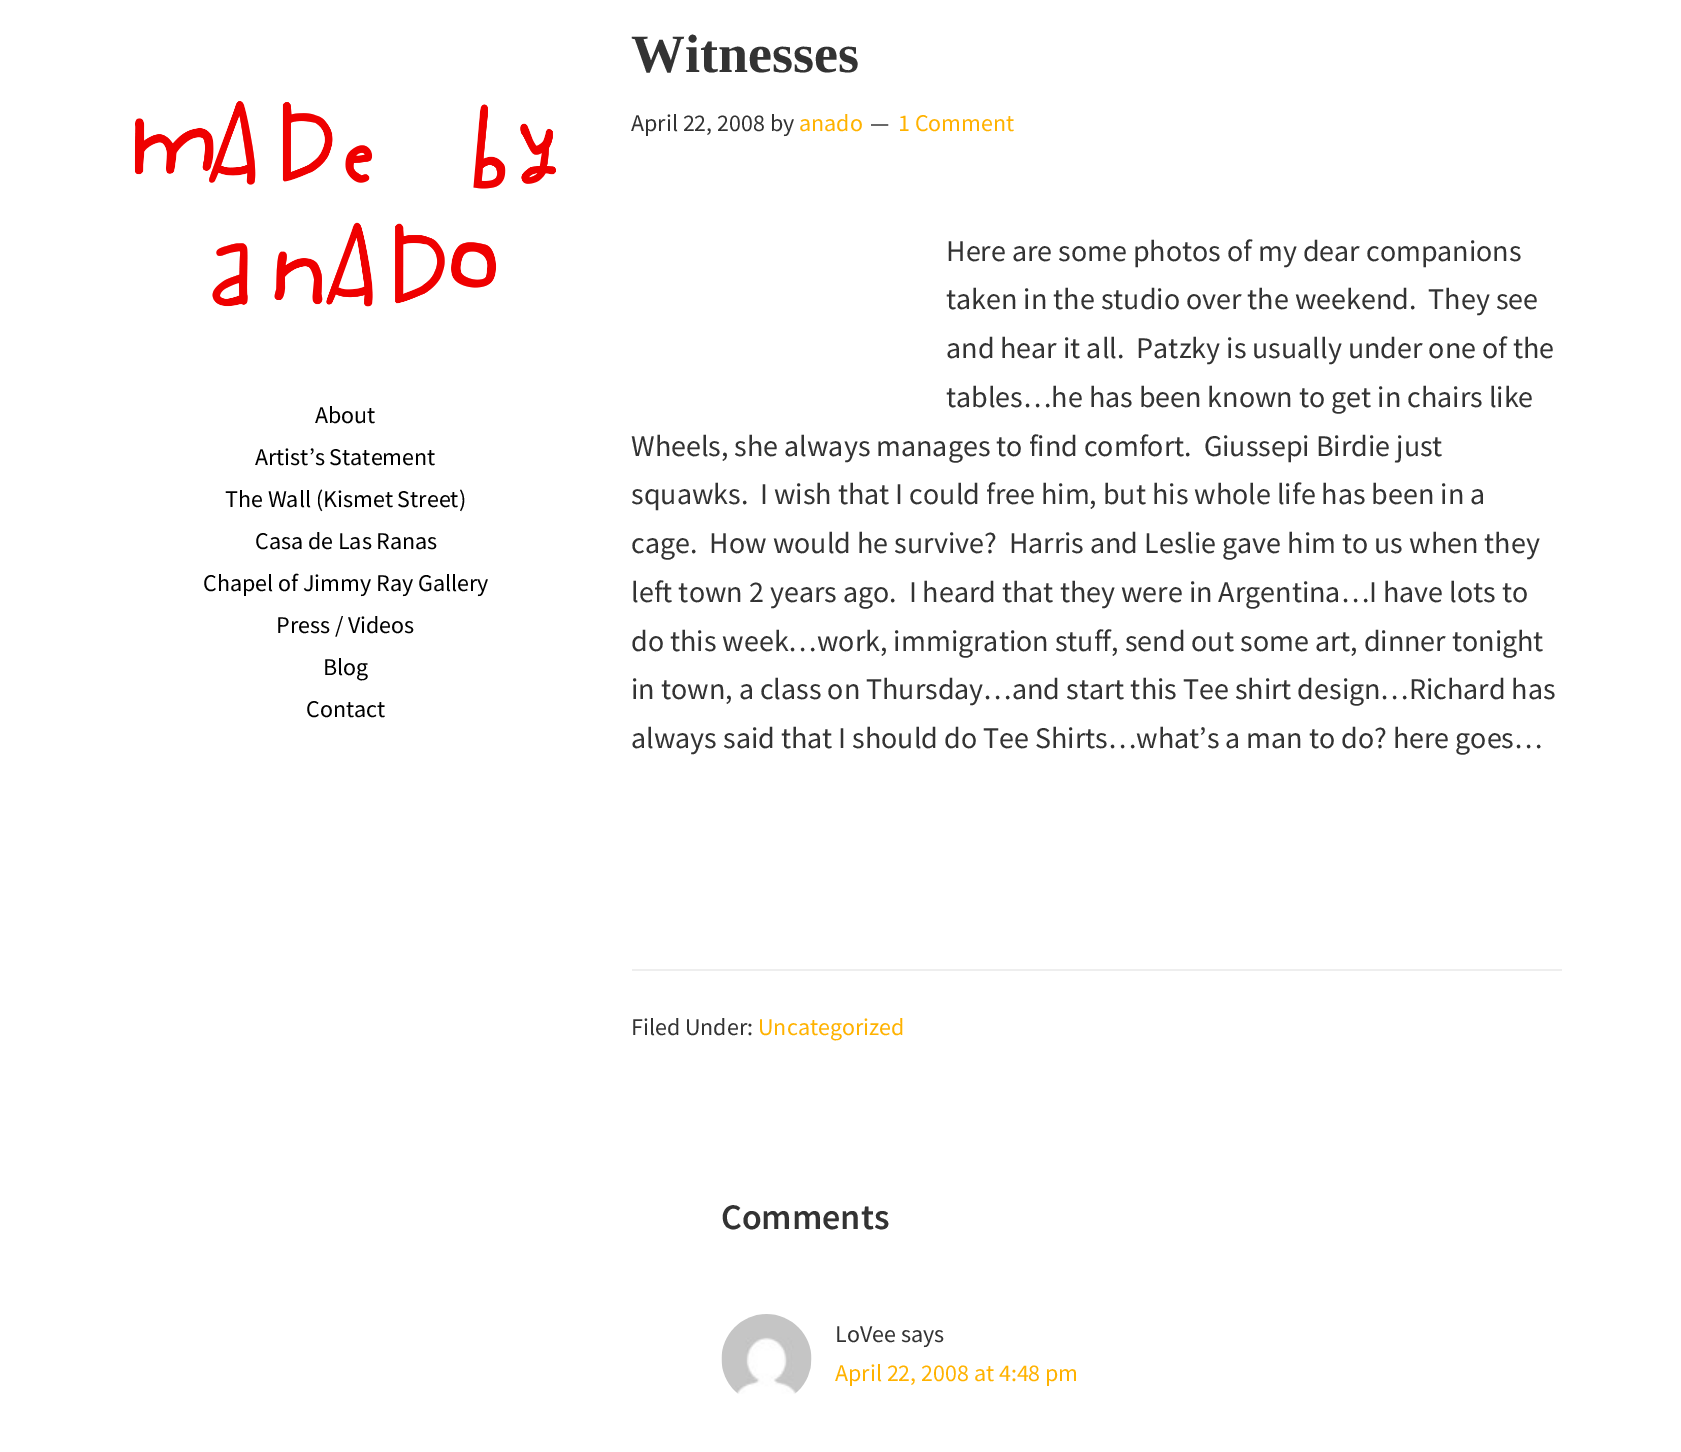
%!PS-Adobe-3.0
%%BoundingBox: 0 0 1681 1452
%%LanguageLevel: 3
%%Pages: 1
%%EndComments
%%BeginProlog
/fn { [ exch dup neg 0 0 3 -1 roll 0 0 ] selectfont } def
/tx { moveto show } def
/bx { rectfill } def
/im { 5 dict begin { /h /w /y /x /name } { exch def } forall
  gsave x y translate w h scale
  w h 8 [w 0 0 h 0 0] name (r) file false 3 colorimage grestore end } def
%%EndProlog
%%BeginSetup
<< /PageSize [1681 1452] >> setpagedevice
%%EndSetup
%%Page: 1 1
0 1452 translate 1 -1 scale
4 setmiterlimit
1 setgray
0 0 1681 1452 bx
(image0.raw) 134 101 422 206 im
/SourceSansPro-Regular 24 fn
0 setgray
(About) 315 423 tx
(Artist’s Statement) 255 465 tx
(The Wall \(Kismet Street\)) 225 507 tx
(Casa de Las Ranas) 255 549 tx
(Chapel of Jimmy Ray Gallery) 203 591 tx
(Press / Videos) 276 633 tx
(Blog) 323 675 tx
(Contact) 306 717 tx
/LiberationSerif-Bold 54 fn
0.2 setgray
(Witnesses) 631 72 tx
/SourceSansPro-Regular 24 fn
(April 22, 2008 by) 631 131 tx
1 0.698 0 setrgbcolor
(anado) 799 131 tx
0.2 setgray
(—) 870 131 tx
1 0.698 0 setrgbcolor
(1 Comment) 898 131 tx
/SourceSansPro-Regular 30 fn
0.2 setgray
(Here are some photos of my dear companions) 946 261 tx
(taken in the studio over the weekend.  They see) 946 309 tx
(and hear it all.  Patzky is usually under one of the) 946 358 tx
(tables…he has been known to get in chairs like) 946 407 tx
(Wheels, she always manages to find comfort.  Giussepi Birdie just) 631 456 tx
(squawks.  I wish that I could free him, but his whole life has been in a) 631 504 tx
(cage.  How would he survive?  Harris and Leslie gave him to us when they) 631 553 tx
(left town 2 years ago.  I heard that they were in Argentina…I have lots to) 631 602 tx
(do this week…work, immigration stuff, send out some art, dinner tonight) 631 651 tx
(in town, a class on Thursday…and start this Tee shirt design…Richard has) 631 699 tx
(always said that I should do Tee Shirts…what’s a man to do? here goes…) 631 748 tx
0.933 setgray
632 969 930 2 bx
/SourceSansPro-Regular 24 fn
0.2 setgray
(Filed Under:) 631 1035 tx
1 0.698 0 setrgbcolor
(Uncategorized) 758 1035 tx
/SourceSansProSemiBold-SemiBold 36 fn
0.2 setgray
(Comments) 721 1229 tx
(image1.raw) 721 1314 91 80 im
/SourceSansPro-Regular 24 fn
(LoVee says) 835 1342 tx
1 0.698 0 setrgbcolor
(April 22, 2008 at 4:48 pm) 835 1381 tx
showpage
%%EOF
